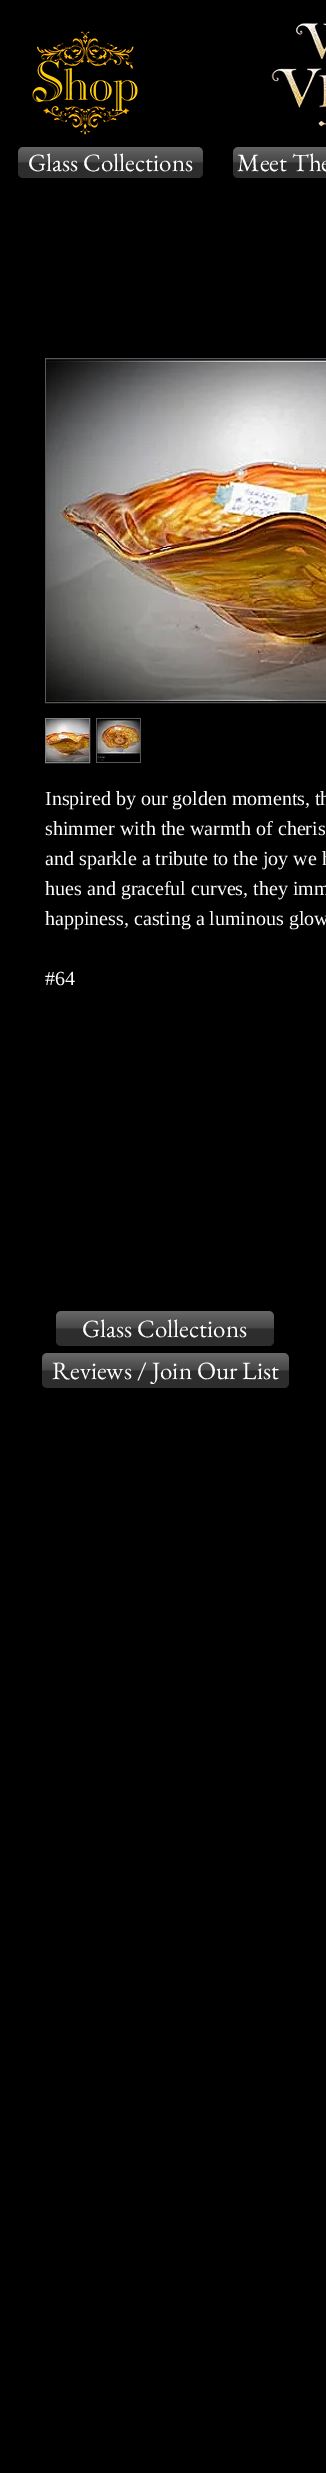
%!PS-Adobe-3.0
%%BoundingBox: 0 0 326 2473
%%LanguageLevel: 3
%%Pages: 1
%%EndComments
%%BeginProlog
/f { fill } bind def
/fn { [ exch dup neg 0 0 3 -1 roll 0 0 ] selectfont } def
/tx { moveto show } def
/bx { rectfill } def
/rr { 5 dict begin { /r /h /w /y /x } { exch def } forall
  x r add y moveto x w add y 2 copy h add r arct x w add y h add x 1 index r arct
  x y h add x y r arct x y 2 copy exch w add exch r arct closepath end } def
/im { 5 dict begin { /h /w /y /x /name } { exch def } forall
  gsave x y translate w h scale
  w h 8 [w 0 0 h 0 0] name (r) file false 3 colorimage grestore end } def
%%EndProlog
%%BeginSetup
<< /PageSize [326 2473] >> setpagedevice
%%EndSetup
%%Page: 1 1
0 2473 translate 1 -1 scale
4 setmiterlimit
0 setgray
0 0 326 2473 bx
(image0.raw) 32 31 106 104 im
(image1.raw) 271 22 55 105 im
0.176 setgray
18 147 185 31 5 rr f
(image2.raw) 18 147 185 16 im
/EBGaramond-Regular 25 fn
1 1 0.996 setrgbcolor
(Glass Collections) 28 171 tx
0.176 setgray
233 147 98 31 5 rr f
(image3.raw) 233 147 93 16 im
1 1 0.996 setrgbcolor
(Meet The) 237 171 tx
0.341 setgray
45.5 358.5 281 344 rectstroke
(image4.raw) 46 360 280 342 im
0.506 setgray
45.5 718.5 44 44 rectstroke
(image5.raw) 46 719 43 43 im
0.341 setgray
96 718 45 45 bx
(image6.raw) 97 719 43 43 im
/LiberationSerif-Regular 20 fn
1 1 0.996 setrgbcolor
(Inspired by our golden moments, th) 45 805 tx
(shimmer with the warmth of cheris) 45 835 tx
(and sparkle a tribute to the joy we h) 45 865 tx
(hues and graceful curves, they imm) 45 895 tx
(happiness, casting a luminous glow) 45 925 tx
(#64) 45 985 tx
0.176 setgray
56 1311 218 35 5 rr f
(image7.raw) 56 1311 218 18 im
/EBGaramond-Regular 25 fn
1 1 0.996 setrgbcolor
(Glass Collections) 82 1337 tx
0.176 setgray
42 1353 247 35 5 rr f
(image8.raw) 42 1353 247 18 im
1 1 0.996 setrgbcolor
(Reviews / Join Our List) 52 1379 tx
showpage
%%EOF
